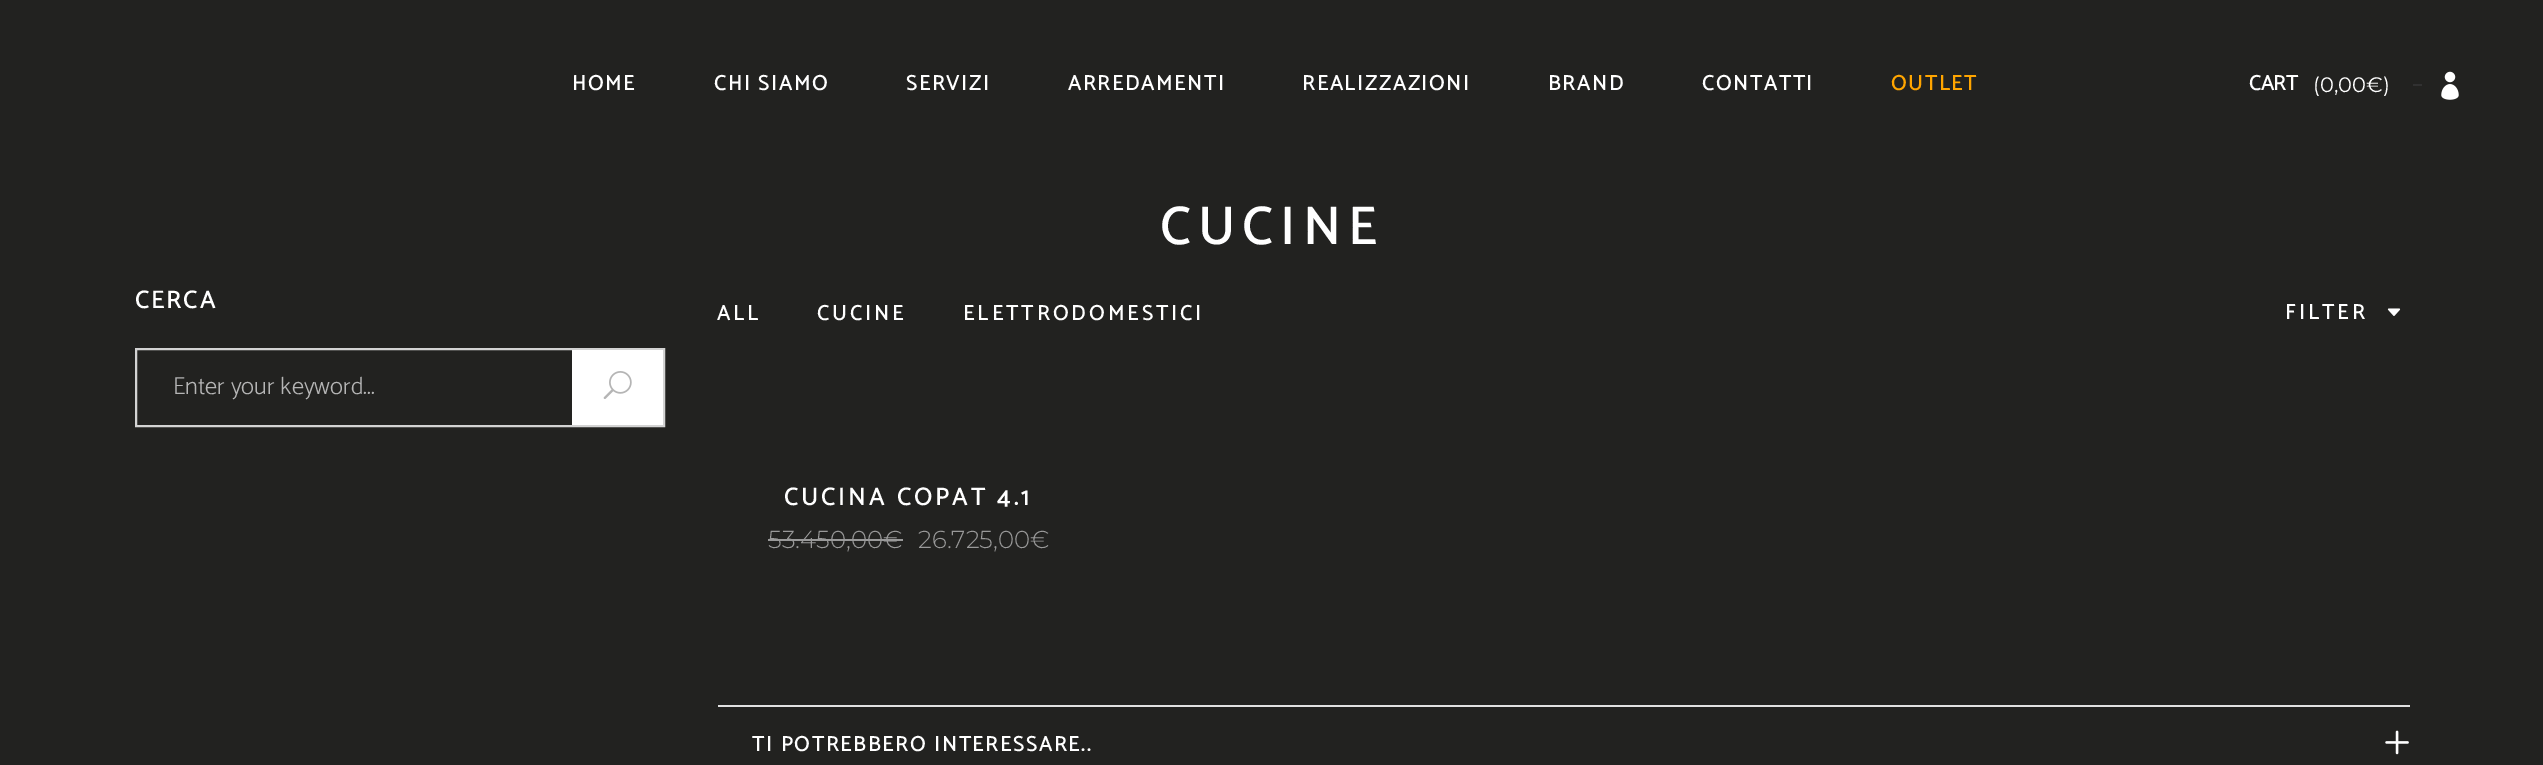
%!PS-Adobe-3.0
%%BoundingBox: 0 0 2543 765
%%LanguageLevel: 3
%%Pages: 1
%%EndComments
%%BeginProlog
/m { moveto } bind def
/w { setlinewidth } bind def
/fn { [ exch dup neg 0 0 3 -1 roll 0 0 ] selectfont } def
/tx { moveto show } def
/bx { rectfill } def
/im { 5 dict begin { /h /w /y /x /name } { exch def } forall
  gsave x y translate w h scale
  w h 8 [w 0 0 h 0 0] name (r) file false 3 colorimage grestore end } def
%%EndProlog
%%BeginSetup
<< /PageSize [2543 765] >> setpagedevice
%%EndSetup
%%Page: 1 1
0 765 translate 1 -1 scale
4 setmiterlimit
0.133 0.133 0.125 setrgbcolor
0 0 2543 765 bx
/Catamaran-Bold 21 fn
1 setgray
572 90 m 2.1 0 (HOME) ashow
714 90 m 2.1 0 (CHI SIAMO) ashow
906 90 m 2.1 0 (SERVIZI) ashow
1068 90 m 2.1 0 (ARREDAMENTI) ashow
1302 90 m 2.1 0 (REALIZZAZIONI) ashow
1548 90 m 2.1 0 (BRAND) ashow
1702 90 m 2.1 0 (CONTATTI) ashow
1 0.647 0 setrgbcolor
1891 90 m 2.1 0 (OUTLET) ashow
1 setgray
(CART) 2249 90 tx
/Montserrat-Regular 21 fn
(\(0,00€\)) 2313 92 tx
0.192 setgray
2413 84 9 2 bx
(image0.raw) 2441 71 18 29 im
/Catamaran-Bold 52.5 fn
1 setgray
1160 244 m 8.75 0 (CUCINE) ashow
/Catamaran-Bold 24.5 fn
135 308 m 2.5 0 (CERCA) ashow
0.827 setgray
2 w
136 349 528 77 rectstroke
/Catamaran-Light 24.5 fn
0.71 setgray
(Enter your keyword...) 173 394 tx
1 setgray
572 350 91 75 bx
(image1.raw) 603 371 29 28 im
/Catamaran-Bold 21 fn
717 320 m 3.5 0 (ALL) ashow
817 320 m 3.5 0 (CUCINE) ashow
963 320 m 3.5 0 (ELETTRODOMESTICI) ashow
2285 319 m 3.5 0 (FILTER) ashow
(image2.raw) 2387 308 14 8 im
/Catamaran-Bold 24.5 fn
784 505 m 3.5 0 (CUCINA COPAT 4.1) ashow
/Montserrat-Light 24.5 fn
0.6 setgray
(53.450,00) 768 548 tx
768 539 116 2 bx
(€) 883 548 tx
884 539 19 2 bx
(26.725,00€) 918 548 tx
0.882 setgray
718 705 1692 2 bx
/Catamaran-Bold 21 fn
1 setgray
752 751 m 2.1 0 (TI POTREBBERO INTERESSARE..) ashow
(image3.raw) 2385 730 24 25 im
showpage
%%EOF
